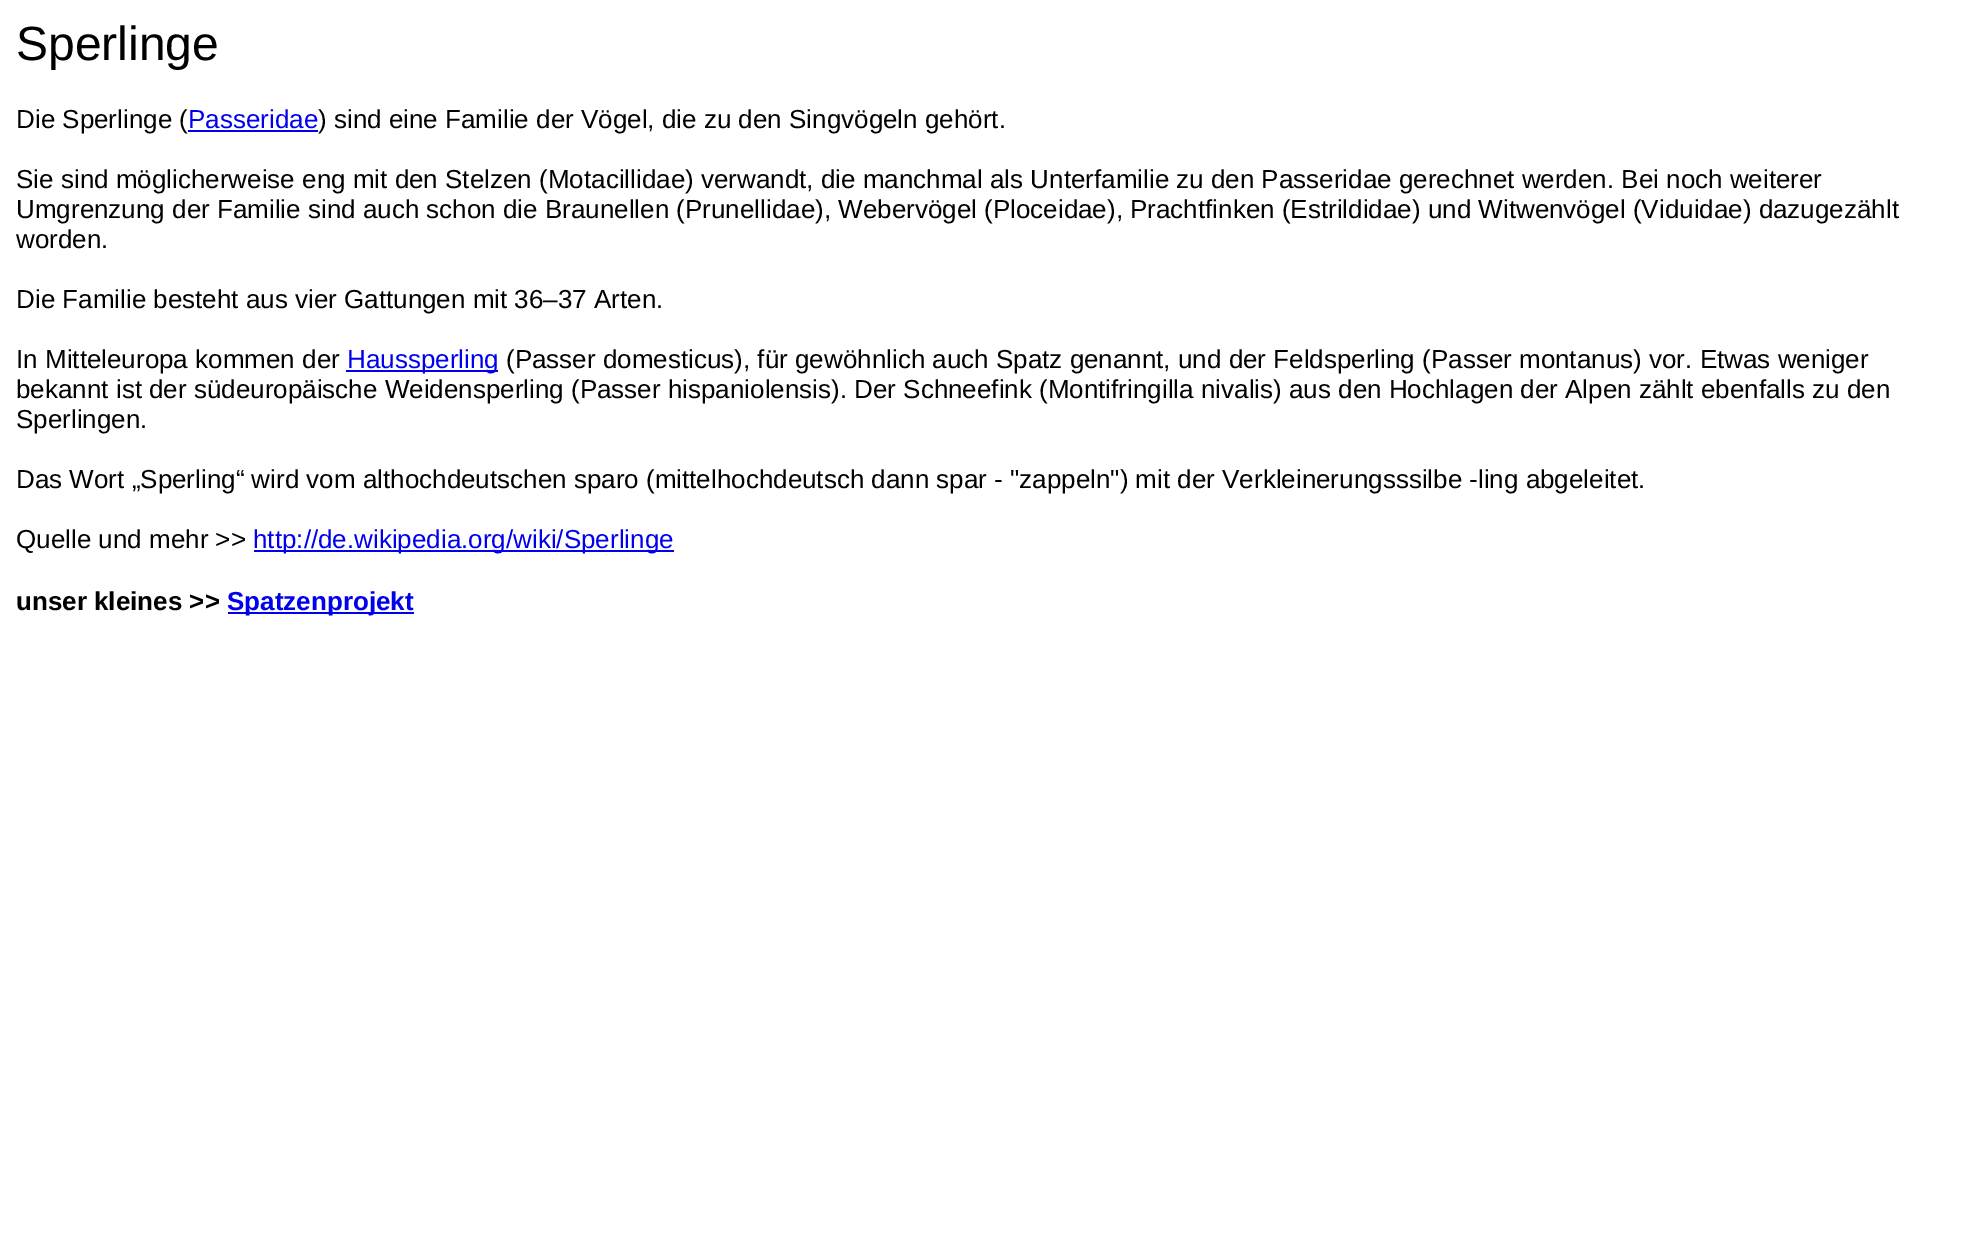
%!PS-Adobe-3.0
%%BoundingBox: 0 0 1980 1245
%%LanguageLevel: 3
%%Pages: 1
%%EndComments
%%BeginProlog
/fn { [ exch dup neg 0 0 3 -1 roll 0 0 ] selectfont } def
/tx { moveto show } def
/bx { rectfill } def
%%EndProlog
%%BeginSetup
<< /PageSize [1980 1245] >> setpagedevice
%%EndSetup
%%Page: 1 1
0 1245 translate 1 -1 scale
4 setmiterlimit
1 setgray
0 0 1980 1245 bx
/LiberationSans-Regular 48 fn
0 setgray
(Sperlinge) 16 60 tx
/LiberationSans-Regular 26 fn
(Die Sperlinge \() 16 128 tx
0 0 0.933 setrgbcolor
188 130 130 2 bx
(Passeridae) 188 128 tx
0 setgray
(\) sind eine Familie der Vögel, die zu den Singvögeln gehört.) 318 128 tx
(Sie sind möglicherweise eng mit den Stelzen \(Motacillidae\) verwandt, die manchmal als Unterfamilie zu den Passeridae gerechnet werden. Bei noch weiterer) 16 188 tx
(Umgrenzung der Familie sind auch schon die Braunellen \(Prunellidae\), Webervögel \(Ploceidae\), Prachtfinken \(Estrildidae\) und Witwenvögel \(Viduidae\) dazugezählt) 16 218 tx
(worden.) 16 248 tx
(Die Familie besteht aus vier Gattungen mit 36–37 Arten.) 16 308 tx
(In Mitteleuropa kommen der) 16 368 tx
0 0 0.933 setrgbcolor
346 370 152 2 bx
(Haussperling) 347 368 tx
0 setgray
(\(Passer domesticus\), für gewöhnlich auch Spatz genannt, und der Feldsperling \(Passer montanus\) vor. Etwas weniger) 506 368 tx
(bekannt ist der südeuropäische Weidensperling \(Passer hispaniolensis\). Der Schneefink \(Montifringilla nivalis\) aus den Hochlagen der Alpen zählt ebenfalls zu den) 16 398 tx
(Sperlingen.) 16 428 tx
(Das Wort „Sperling“ wird vom althochdeutschen sparo \(mittelhochdeutsch dann spar - "zappeln"\) mit der Verkleinerungsssilbe -ling abgeleitet.) 16 488 tx
(Quelle und mehr >>) 16 548 tx
0 0 0.933 setrgbcolor
254 550 420 2 bx
(http://de.wikipedia.org/wiki/Sperlinge) 253 548 tx
/LiberationSans-Bold 26 fn
0 setgray
(unser kleines >>) 16 610 tx
0 0 0.933 setrgbcolor
228 612 186 2 bx
(Spatzenprojekt) 227 610 tx
showpage
%%EOF
